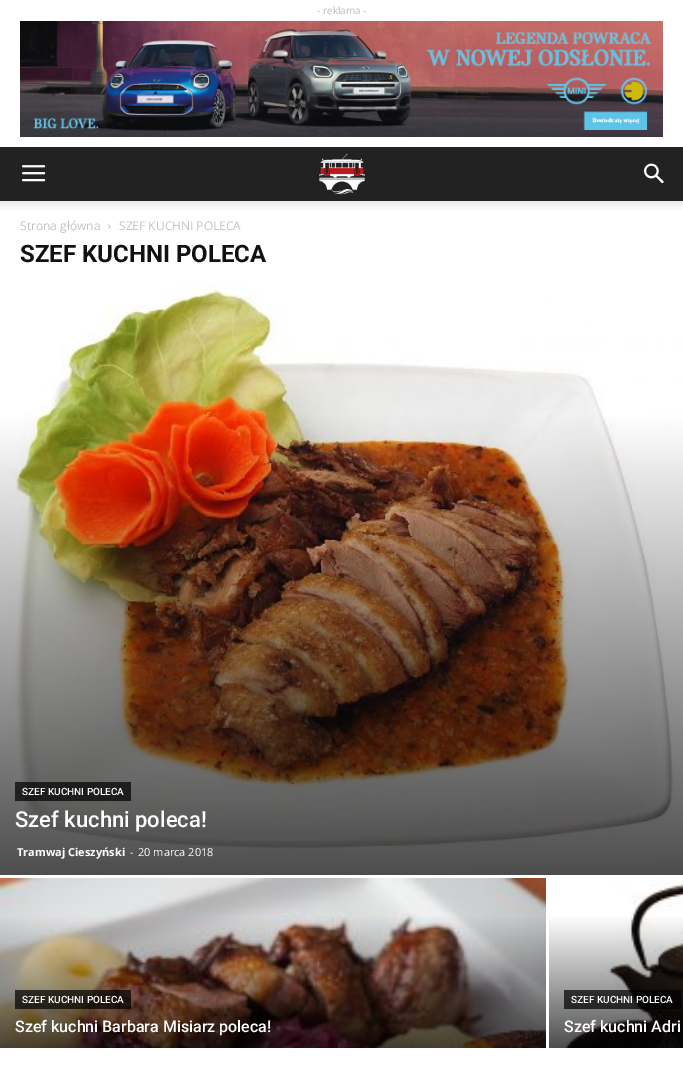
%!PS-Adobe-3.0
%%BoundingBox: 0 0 683 1082
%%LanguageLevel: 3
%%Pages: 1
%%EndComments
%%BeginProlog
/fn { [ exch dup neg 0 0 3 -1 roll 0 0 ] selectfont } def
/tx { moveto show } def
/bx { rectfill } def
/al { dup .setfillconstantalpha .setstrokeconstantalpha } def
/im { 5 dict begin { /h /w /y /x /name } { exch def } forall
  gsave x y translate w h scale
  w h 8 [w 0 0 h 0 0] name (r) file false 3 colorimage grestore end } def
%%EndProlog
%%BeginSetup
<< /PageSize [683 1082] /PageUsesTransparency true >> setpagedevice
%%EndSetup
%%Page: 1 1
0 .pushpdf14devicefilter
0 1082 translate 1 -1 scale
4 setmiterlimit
1 setgray
0 0 683 1082 bx
/OpenSans-Regular 10 fn
0.733 setgray
(- reklama -) 317 14 tx
(image0.raw) 20 21 643 116 im
0.133 setgray
0 147 683 54 bx
(image1.raw) 22 165 24 17 im
(image2.raw) 319 153 46 42 im
(image3.raw) 644 163 20 21 im
(image4.raw) 0 201 683 9 im
/OpenSans-Regular 12 fn
0.765 setgray
(Strona główna) 20 230 tx
(image5.raw) 108 224 3 5 im
(SZEF KUCHNI POLECA) 119 230 tx
/Roboto-Bold 24 fn
0.067 setgray
(SZEF KUCHNI POLECA) 20 262 tx
(image6.raw) 0 284 683 591 im
0.7 al
0 setgray
15 782 116 19 bx
/Roboto-Medium 10 fn
1 al
1 setgray
(SZEF KUCHNI POLECA) 22 795 tx
/Roboto-Medium 22 fn
(Szef kuchni poleca!) 15 827 tx
/OpenSans-Bold 11 fn
(Tramwaj Cieszyński) 17 856 tx
/OpenSans-Regular 11 fn
(-) 130 856 tx
(20 marca 2018) 138 856 tx
(image7.raw) 0 878 546 170 im
0.7 al
0 setgray
15 990 116 19 bx
/Roboto-Medium 10 fn
1 al
1 setgray
(SZEF KUCHNI POLECA) 22 1003 tx
/Roboto-Medium 16 fn
(Szef kuchni Barbara Misiarz poleca!) 15 1032 tx
(image8.raw) 549 878 134 170 im
0.7 al
0 setgray
564 990 117 19 bx
/Roboto-Medium 10 fn
1 al
1 setgray
(SZEF KUCHNI POLECA) 571 1003 tx
/Roboto-Medium 16 fn
(Szef kuchni Adri) 564 1032 tx
.poppdf14devicefilter showpage
%%EOF
